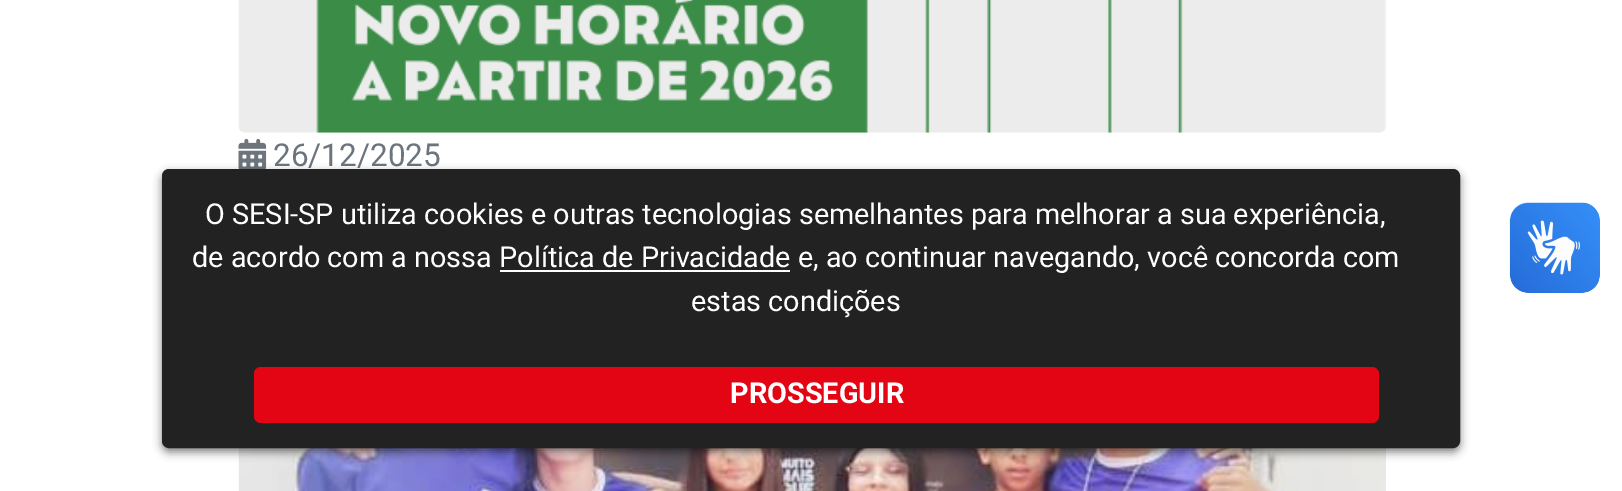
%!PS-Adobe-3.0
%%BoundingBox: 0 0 1622 491
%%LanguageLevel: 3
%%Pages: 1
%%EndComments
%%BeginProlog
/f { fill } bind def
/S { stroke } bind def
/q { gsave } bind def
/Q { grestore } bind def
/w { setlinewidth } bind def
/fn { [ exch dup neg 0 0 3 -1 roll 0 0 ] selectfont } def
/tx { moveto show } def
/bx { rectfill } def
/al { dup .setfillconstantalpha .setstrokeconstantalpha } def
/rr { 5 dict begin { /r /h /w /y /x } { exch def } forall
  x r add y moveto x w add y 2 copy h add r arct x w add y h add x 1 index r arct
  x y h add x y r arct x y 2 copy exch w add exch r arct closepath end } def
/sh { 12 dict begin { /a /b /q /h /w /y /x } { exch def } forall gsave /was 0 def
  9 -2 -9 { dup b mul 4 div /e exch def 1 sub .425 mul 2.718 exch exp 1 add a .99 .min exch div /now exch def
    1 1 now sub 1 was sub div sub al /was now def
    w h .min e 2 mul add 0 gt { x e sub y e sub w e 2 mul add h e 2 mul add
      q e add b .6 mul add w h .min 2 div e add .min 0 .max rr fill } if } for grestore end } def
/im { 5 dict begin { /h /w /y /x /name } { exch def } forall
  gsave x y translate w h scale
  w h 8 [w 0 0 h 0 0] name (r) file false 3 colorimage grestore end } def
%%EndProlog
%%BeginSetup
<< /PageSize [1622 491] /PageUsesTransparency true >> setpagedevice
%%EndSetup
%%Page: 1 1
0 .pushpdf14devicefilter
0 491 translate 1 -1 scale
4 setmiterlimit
1 setgray
0 0 1622 491 bx
(image0.raw) 238 0 1148 133 im
(image1.raw) 238 139 29 30 im
/Roboto-Regular 31.5 fn
0.424 0.459 0.49 setrgbcolor
(26/12/2025) 273 166 tx
(image2.raw) 238 448 1148 43 im
0 setgray
162 173 1298 279 7 4.5 0.5 sh
0.133 setgray
163 170 1296 277 6 rr q f Q
2 w
S
/Roboto-Regular 28.8 fn
1 setgray
(O SESI-SP utiliza cookies e outras tecnologias semelhantes para melhorar a sua experiência,) 205 224 tx
(de acordo com a nossa Política de Privacidade e, ao continuar navegando, você concorda com) 192 267 tx
500 270 290 2 bx
(estas condições) 691 311 tx
0.89 0.02 0.075 setrgbcolor
254 367 1125 56 7 rr f
/Roboto-Bold 28.8 fn
1 setgray
(PROSSEGUIR) 730 403 tx
(image3.raw) 1509 202 91 91 im
(image4.raw) 1510 203 90 90 im
.poppdf14devicefilter showpage
%%EOF
